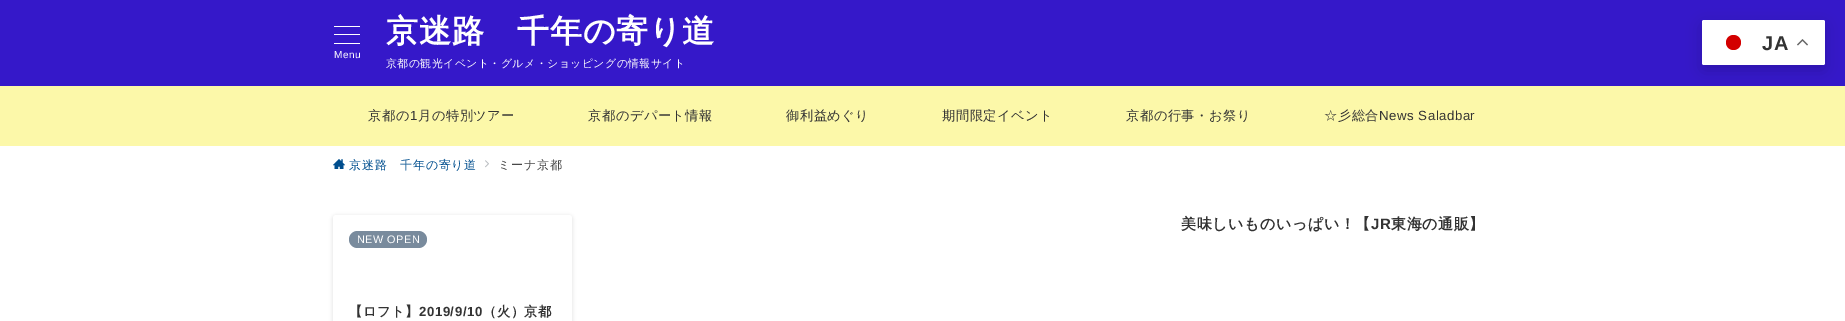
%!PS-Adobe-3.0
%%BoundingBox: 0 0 1845 321
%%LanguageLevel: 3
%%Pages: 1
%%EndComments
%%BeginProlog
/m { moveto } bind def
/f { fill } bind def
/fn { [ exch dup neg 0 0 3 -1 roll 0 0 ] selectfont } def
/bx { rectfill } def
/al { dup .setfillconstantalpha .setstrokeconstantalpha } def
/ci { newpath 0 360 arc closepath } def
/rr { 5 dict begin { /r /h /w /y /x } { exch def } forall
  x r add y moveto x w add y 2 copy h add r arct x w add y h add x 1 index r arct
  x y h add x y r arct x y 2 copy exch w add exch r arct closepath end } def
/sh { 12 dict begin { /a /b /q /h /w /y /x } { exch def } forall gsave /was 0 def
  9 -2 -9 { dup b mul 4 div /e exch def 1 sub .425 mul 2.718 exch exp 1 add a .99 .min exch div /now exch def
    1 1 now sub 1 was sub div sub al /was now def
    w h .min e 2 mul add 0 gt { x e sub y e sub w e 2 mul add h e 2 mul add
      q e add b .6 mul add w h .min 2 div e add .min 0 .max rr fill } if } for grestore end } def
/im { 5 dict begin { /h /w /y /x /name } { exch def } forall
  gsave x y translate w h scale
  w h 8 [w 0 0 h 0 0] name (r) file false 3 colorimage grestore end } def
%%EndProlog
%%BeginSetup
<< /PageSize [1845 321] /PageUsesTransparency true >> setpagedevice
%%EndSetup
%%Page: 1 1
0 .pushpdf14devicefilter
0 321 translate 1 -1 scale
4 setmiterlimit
1 setgray
0 0 1845 321 bx
0.208 0.094 0.788 setrgbcolor
0 0 1845 86 bx
1 setgray
334 26 26 1 0.5 rr f
334 34 26 1 0.5 rr f
334 43 26 1 0.5 rr f
/LiberationSans-Regular 10 fn
334 58 m 0.5 0 (Menu) ashow
/WenQuanYiZenHei-Bold 32 fn
386 42 m 0.75 0 (京迷路　千年の寄り道) ashow
/WenQuanYiZenHei-Medium 10.9 fn
386 67 m 0.45 0 (京都の観光イベント・グルメ・ショッピングの情報サイト) ashow
0.988 0.973 0.663 setrgbcolor
0 86 1845 60 bx
/WenQuanYiZenHei-Medium 13.25 fn
0.2 setgray
368 120 m 0.5 0 (京都の) ashow
/LiberationSans-Regular 13.25 fn
410 120 m 0.5 0 (1) ashow
/WenQuanYiZenHei-Medium 13.25 fn
418 120 m 0.5 0 (月の特別ツアー) ashow
588 120 m 0.5 0 (京都のデパート情報) ashow
786 120 m 0.5 0 (御利益めぐり) ashow
942 120 m 0.5 0 (期間限定イベント) ashow
1126 120 m 0.5 0 (京都の行事・お祭り) ashow
1324 120 m 0.5 0 (☆彡総合) ashow
/LiberationSans-Regular 13.25 fn
1379 120 m 0.5 0 (News Saladbar) ashow
(image0.raw) 333 159 12 10 im
/WenQuanYiZenHei-Medium 12 fn
0 0.306 0.557 setrgbcolor
349 169 m 0.75 0 (京迷路　千年の寄り道) ashow
(image1.raw) 485 160 4 8 im
0.282 setgray
498 169 m 0.75 0 (ミーナ京都) ashow
/WenQuanYiZenHei-Bold 15 fn
0.2 setgray
1181 229 m 0.6 0 (美味しいものいっぱい！【) ashow
/LiberationSans-Bold 15 fn
1371 229 m 0.6 0 (JR) ashow
/WenQuanYiZenHei-Bold 15 fn
1391 229 m 0.6 0 (東海の通販】) ashow
0 setgray
332 215 241 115 4 1.5 0.08 sh
1 setgray
333 215 239 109 3 rr f
0.475 0.545 0.616 setrgbcolor
349 231 78 17 8.5 rr f
/LiberationSans-Regular 10.9 fn
1 setgray
357 243 m 0.45 0 (NEW OPEN) ashow
/WenQuanYiZenHei-Bold 13.25 fn
0.2 setgray
349 316 m 0.5 0 (【ロフト】) ashow
/LiberationSans-Bold 13.25 fn
419 316 m 0.5 0 (2019/9/10) ashow
/WenQuanYiZenHei-Bold 13.25 fn
483 316 m 0.5 0 (（火）京都) ashow
0 setgray
1702 25 123 45 2 7.5 0.15 sh
1 setgray
1702 20 123 45 2 rr f
0.827 0 0 setrgbcolor
1733.5 42.5 7.5 ci f
/LiberationSans-Bold 20 fn
0.2 setgray
1762 50 m 0.75 0 (JA) ashow
(image2.raw) 1797 39 11 7 im
.poppdf14devicefilter showpage
%%EOF
